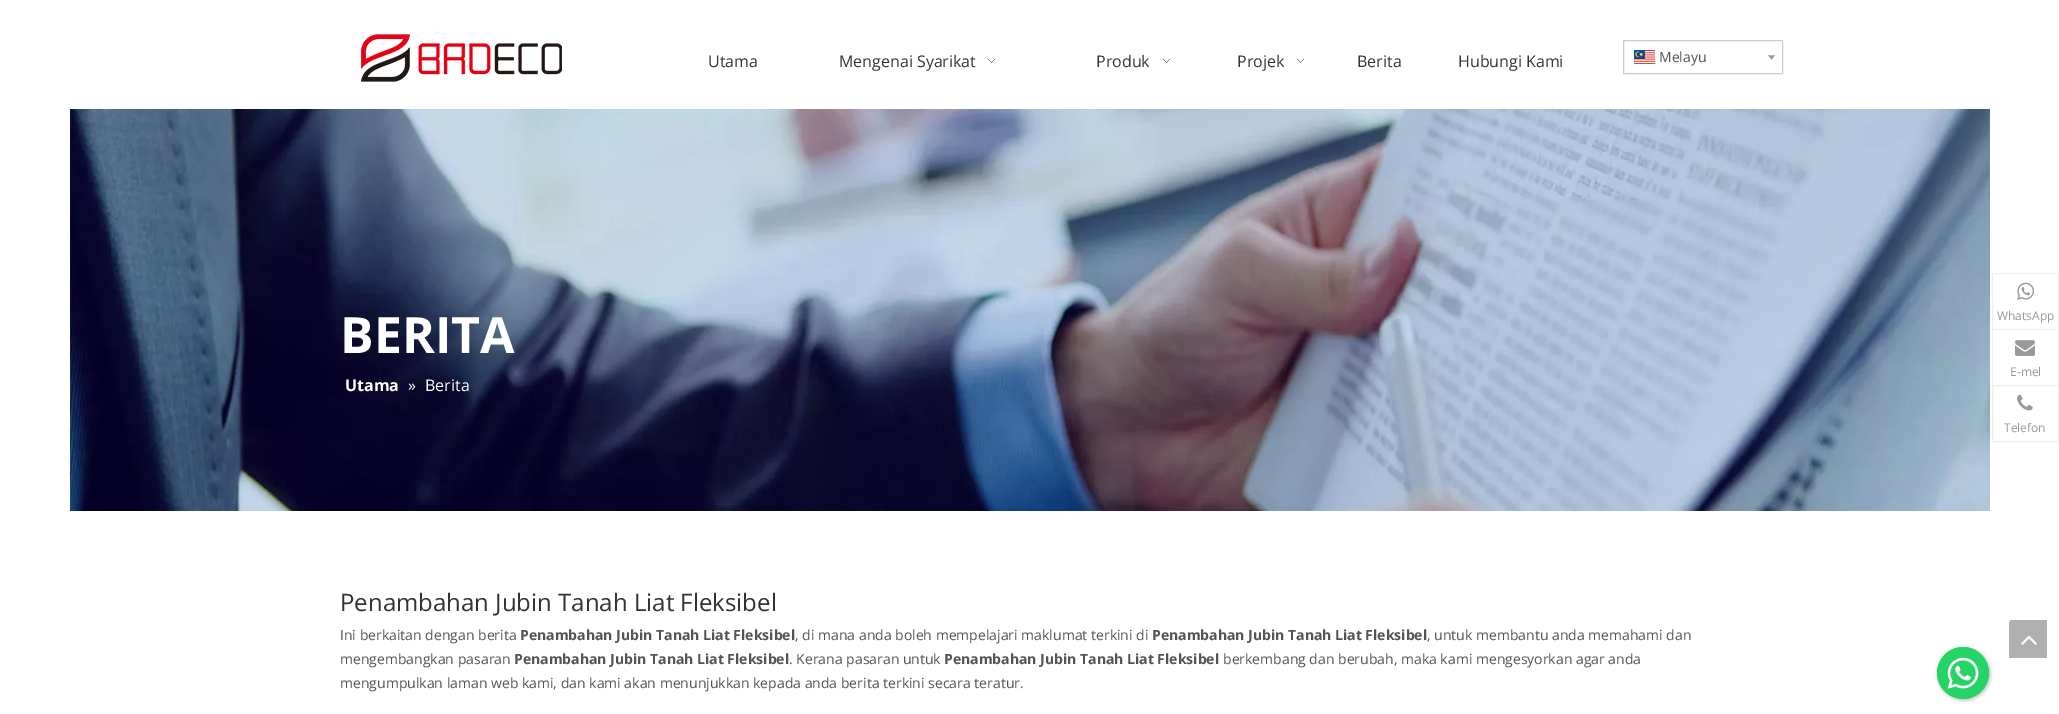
%!PS-Adobe-3.0
%%BoundingBox: 0 0 2059 714
%%LanguageLevel: 3
%%Pages: 1
%%EndComments
%%BeginProlog
/fn { [ exch dup neg 0 0 3 -1 roll 0 0 ] selectfont } def
/tx { moveto show } def
/bx { rectfill } def
/al { dup .setfillconstantalpha .setstrokeconstantalpha } def
/rr { 5 dict begin { /r /h /w /y /x } { exch def } forall
  x r add y moveto x w add y 2 copy h add r arct x w add y h add x 1 index r arct
  x y h add x y r arct x y 2 copy exch w add exch r arct closepath end } def
/sh { 12 dict begin { /a /b /q /h /w /y /x } { exch def } forall gsave /was 0 def
  9 -2 -9 { dup b mul 4 div /e exch def 1 sub .425 mul 2.718 exch exp 1 add a .99 .min exch div /now exch def
    1 1 now sub 1 was sub div sub al /was now def
    w h .min e 2 mul add 0 gt { x e sub y e sub w e 2 mul add h e 2 mul add
      q e add b .6 mul add w h .min 2 div e add .min 0 .max rr fill } if } for grestore end } def
/im { 5 dict begin { /h /w /y /x /name } { exch def } forall
  gsave x y translate w h scale
  w h 8 [w 0 0 h 0 0] name (r) file false 3 colorimage grestore end } def
%%EndProlog
%%BeginSetup
<< /PageSize [2059 714] /PageUsesTransparency true >> setpagedevice
%%EndSetup
%%Page: 1 1
0 .pushpdf14devicefilter
0 714 translate 1 -1 scale
4 setmiterlimit
1 setgray
0 0 2059 714 bx
(image0.raw) 361 34 201 48 im
/OpenSans-Regular 16 fn
0.2 setgray
(Utama) 708 67 tx
(Mengenai Syarikat) 839 67 tx
(image1.raw) 988 59 7 4 im
(Produk) 1096 67 tx
(image1.raw) 1163 59 7 4 im
(Projek) 1237 67 tx
(image1.raw) 1297 59 7 4 im
(Berita) 1357 67 tx
(Hubungi Kami) 1458 67 tx
0.8 setgray
1623.5 40.5 159 33 rectstroke
(image2.raw) 1634 50 21 14 im
/OpenSans-Regular 14 fn
0.329 setgray
(Melayu) 1659 62 tx
(image3.raw) 1768 55 7 5 im
(image4.raw) 70 109 1920 402 im
/OpenSans-Bold 50 fn
1 setgray
(BERITA) 340 353 tx
/OpenSans-Bold 16 fn
(Utama) 345 391 tx
/OpenSans-Regular 16 fn
(») 408 391 tx
(Berita) 425 391 tx
/OpenSans-Regular 24 fn
0.2 setgray
(Penambahan Jubin Tanah Liat Fleksibel) 340 611 tx
/OpenSans-Regular 14 fn
0.329 setgray
(Ini berkaitan dengan berita) 340 640 tx
/OpenSans-Bold 14 fn
(Penambahan Jubin Tanah Liat Fleksibel) 520 640 tx
/OpenSans-Regular 14 fn
(, di mana anda boleh mempelajari maklumat terkini di) 795 640 tx
/OpenSans-Bold 14 fn
(Penambahan Jubin Tanah Liat Fleksibel) 1152 640 tx
/OpenSans-Regular 14 fn
(, untuk membantu anda memahami dan) 1427 640 tx
(mengembangkan pasaran) 340 664 tx
/OpenSans-Bold 14 fn
(Penambahan Jubin Tanah Liat Fleksibel) 514 664 tx
/OpenSans-Regular 14 fn
(. Kerana pasaran untuk) 789 664 tx
/OpenSans-Bold 14 fn
(Penambahan Jubin Tanah Liat Fleksibel) 944 664 tx
/OpenSans-Regular 14 fn
(berkembang dan berubah, maka kami mengesyorkan agar anda) 1223 664 tx
(mengumpulkan laman web kami, dan kami akan menunjukkan kepada anda berita terkini secara teratur.) 340 688 tx
0.933 setgray
1992 273 67 1 bx
2058 273 1 56 bx
1992 273 1 56 bx
(image5.raw) 2017 282 18 18 im
/OpenSans-Regular 12 fn
0.6 setgray
(WhatsApp) 1997 320 tx
0.933 setgray
1992 329 67 1 bx
2058 329 1 56 bx
1992 329 1 56 bx
(image6.raw) 2015 340 20 16 im
0.6 setgray
(E-mel) 2010 376 tx
0.933 setgray
1992.5 385.5 66 56 rectstroke
(image7.raw) 2017 394 16 17 im
0.6 setgray
(Telefon) 2004 432 tx
0.235 setgray
1938 648 52 52 26 2 0.4 sh
(image8.raw) 1937 647 52 52 im
(image9.raw) 2009 620 38 38 im
.poppdf14devicefilter showpage
%%EOF
